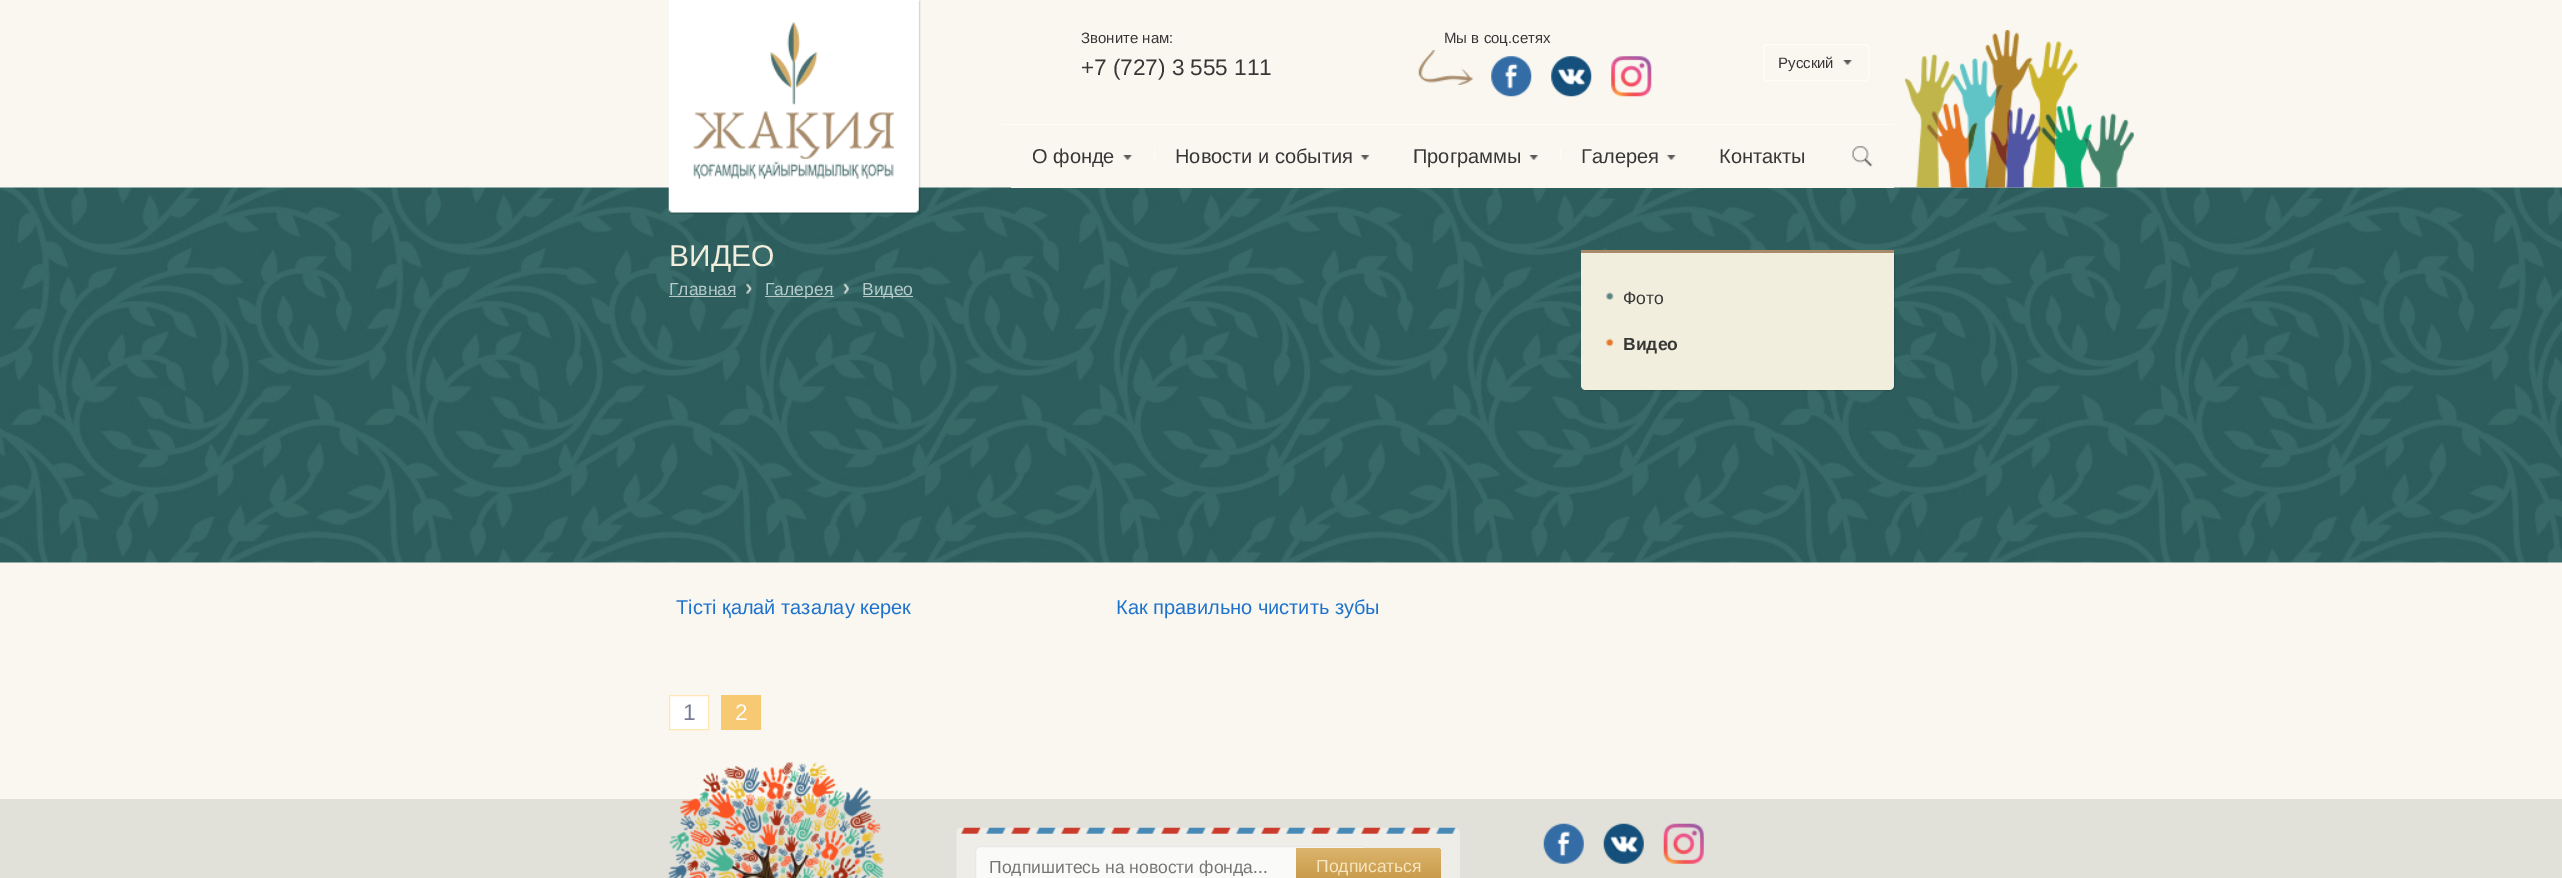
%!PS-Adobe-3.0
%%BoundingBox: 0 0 2562 878
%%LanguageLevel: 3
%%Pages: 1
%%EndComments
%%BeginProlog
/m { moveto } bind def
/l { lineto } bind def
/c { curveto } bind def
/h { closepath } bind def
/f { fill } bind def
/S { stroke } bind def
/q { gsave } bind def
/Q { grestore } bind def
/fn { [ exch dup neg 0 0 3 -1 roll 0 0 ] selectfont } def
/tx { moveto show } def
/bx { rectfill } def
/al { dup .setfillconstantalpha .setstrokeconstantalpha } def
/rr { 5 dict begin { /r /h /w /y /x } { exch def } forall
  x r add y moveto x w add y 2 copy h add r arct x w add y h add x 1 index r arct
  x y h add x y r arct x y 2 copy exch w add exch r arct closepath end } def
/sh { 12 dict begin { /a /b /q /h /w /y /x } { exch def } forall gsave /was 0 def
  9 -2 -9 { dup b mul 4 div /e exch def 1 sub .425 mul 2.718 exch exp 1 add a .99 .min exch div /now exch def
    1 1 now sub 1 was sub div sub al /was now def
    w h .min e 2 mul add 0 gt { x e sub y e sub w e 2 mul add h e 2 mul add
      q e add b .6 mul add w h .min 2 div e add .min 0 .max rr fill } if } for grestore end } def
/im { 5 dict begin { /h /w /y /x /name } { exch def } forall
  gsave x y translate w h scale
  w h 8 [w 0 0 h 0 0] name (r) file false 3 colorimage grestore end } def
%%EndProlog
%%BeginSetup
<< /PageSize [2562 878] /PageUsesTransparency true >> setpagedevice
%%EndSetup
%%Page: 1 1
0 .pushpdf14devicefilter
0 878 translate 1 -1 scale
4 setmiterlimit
0.976 0.969 0.941 setrgbcolor
0 0 2562 878 bx
(image16.raw) 0 187 2562 376 im
0 setgray
670 1 250 213 0 0.5 0.15 sh
(image0.raw) 668 0 251 213 im
/LiberationSans-Regular 15 fn
0.216 setgray
(Звоните нам:) 1081 43 tx
/LiberationSans-Regular 22.5 fn
(+7 \(727\) 3 555 111) 1081 75 tx
(image1.raw) 1418 50 55 35 im
/LiberationSans-Regular 15 fn
(Мы в соц.сетях) 1444 43 tx
(image2.raw) 1491 56 41 41 im
(image3.raw) 1551 56 41 41 im
(image4.raw) 1611 56 41 41 im
(image5.raw) 1905 30 229 158 im
1 0.992 0.965 setrgbcolor
1763.5 44.5 105 36 3.5 rr S
(image6.raw) 1842 60 11 5 im
0.216 setgray
(Русский) 1778 68 tx
0.976 0.969 0.941 setrgbcolor
1011 187 883 1 bx
1 0.992 0.965 setrgbcolor
1011 124 883 1 bx
(image7.raw) 998 124 13 1 im
(image6.raw) 1122 155 11 5 im
/LiberationSans-Regular 20 fn
0.216 setgray
(О фонде) 1032 163 tx
0.996 0.988 0.961 setrgbcolor
1154 148 1 13 bx
(image8.raw) 1360 155 10 5 im
0.216 setgray
(Новости и события) 1175 163 tx
(image9.raw) 1529 155 10 5 im
(Программы) 1413 163 tx
0.996 0.988 0.961 setrgbcolor
1560 148 1 13 bx
(image10.raw) 1666 155 10 5 im
0.216 setgray
(Галерея) 1581 163 tx
(Контакты) 1719 163 tx
(image11.raw) 1852 146 21 21 im
/LiberationSans-Regular 30 fn
0.949 0.933 0.867 setrgbcolor
(ВИДЕО) 669 266 tx
(image12.raw) 746 283 6 11 im
/LiberationSans-Regular 17.5 fn
0.71 0.792 0.788 setrgbcolor
(Главная) 669 295 tx
669 296 67 1 bx
(image13.raw) 843 283 6 11 im
765 296 69 1 bx
(Галерея) 765 295 tx
863 296 50 1 bx
(Видео) 862 295 tx
/LiberationSans-Regular 20 fn
0.118 0.447 0.8 setrgbcolor
(Тісті қалай тазалау керек) 676 614 tx
(Как правильно чистить зубы) 1116 614 tx
1 setgray
669.5 695.5 m 708.5 695.5 l 708.5 729.5 l 669.5 729.5 l h q f Q
1 0.898 0.702 setrgbcolor
S
/LiberationSans-Regular 22.5 fn
0.455 0.482 0.576 setrgbcolor
(1) 683 720 tx
0.969 0.788 0.451 setrgbcolor
721 695 40 35 bx
0.996 0.988 0.969 setrgbcolor
(2) 735 720 tx
0 setgray
1583 251 312 140 5 0.5 0.16 sh
0.949 0.933 0.867 setrgbcolor
1581 250 m 1894 250 l 1894 385 l 1894 388 1892 390 1889 390 c 1586 390 l 1583 390 1581 388 1581 385 c h f
0.655 0.545 0.42 setrgbcolor
1581 250 313 3 bx
(image14.raw) 1606 292 8 8 im
/LiberationSans-Regular 17.5 fn
0.216 setgray
(Фото) 1623 304 tx
(image15.raw) 1606 338 8 9 im
/LiberationSans-Bold 17.5 fn
(Видео) 1623 350 tx
0.882 0.878 0.851 setrgbcolor
0 799 2562 79 bx
(image17.raw) 668 762 216 116 im
(image18.raw) 1543 823 41 41 im
(image19.raw) 1603 823 41 41 im
(image20.raw) 1663 823 41 41 im
(image21.raw) 956 827 504 51 im
0.98 0.98 0.973 setrgbcolor
975.5 846.5 392 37 4.5 rr q f Q
0.91 setgray
S
q
989 856 375 20 rectclip
/LiberationSans-Regular 17.5 fn
0.459 setgray
(Подпишитесь на новости фонда...) 989 873 tx
Q
q 1296 848 m 1436 848 l 1439 848 1441 850 1441 853 c 1441 878 l 1441 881 1439 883 1436 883 c 1296 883 l h clip newpath
<< /ShadingType 2 /ColorSpace /DeviceRGB /Coords [1369 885 1369 848] /Extend [true true] /Function << /FunctionType 2 /Domain [0 1] /C0 [0.773 0.592 0.267] /C1 [0.863 0.706 0.424] /N 1 >> >> shfill Q
/LiberationSans-Regular 17.5 fn
0.965 0.906 0.753 setrgbcolor
(Подписаться) 1316 872 tx
.poppdf14devicefilter showpage
%%EOF
